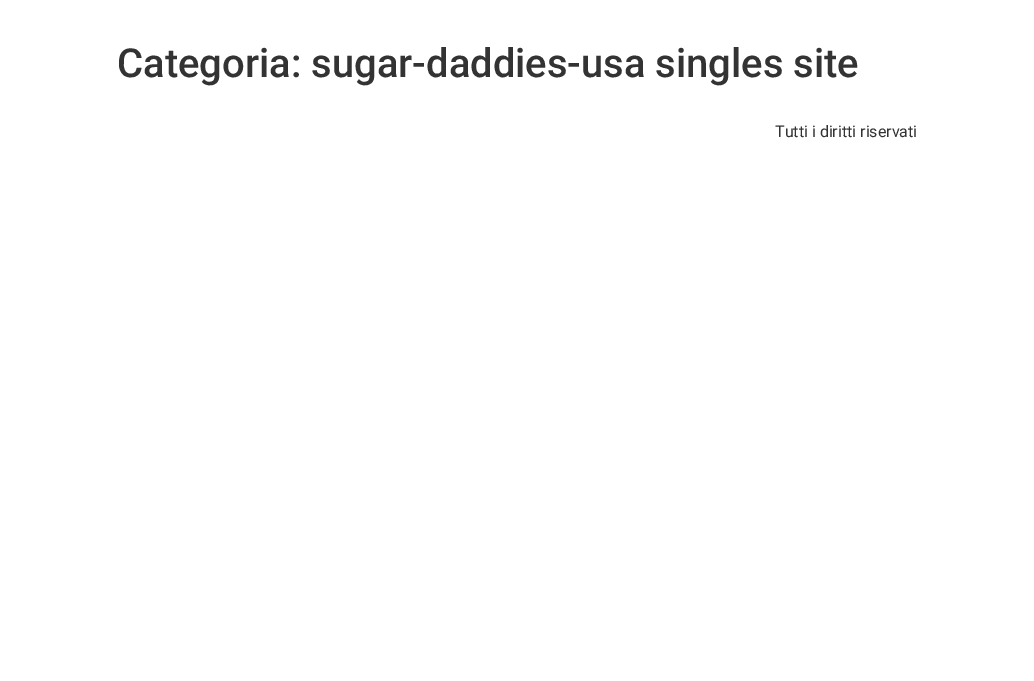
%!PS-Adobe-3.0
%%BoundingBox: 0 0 1034 681
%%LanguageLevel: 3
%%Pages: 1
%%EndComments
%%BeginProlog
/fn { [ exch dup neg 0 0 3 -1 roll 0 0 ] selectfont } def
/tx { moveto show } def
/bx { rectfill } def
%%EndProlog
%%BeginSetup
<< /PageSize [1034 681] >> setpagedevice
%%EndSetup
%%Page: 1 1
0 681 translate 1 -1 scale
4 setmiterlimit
1 setgray
0 0 1034 681 bx
/Roboto-Medium 40 fn
0.2 setgray
(Categoria: sugar-daddies-usa singles site) 117 77 tx
/Roboto-Regular 16 fn
(Tutti i diritti riservati) 775 137 tx
showpage
%%EOF
